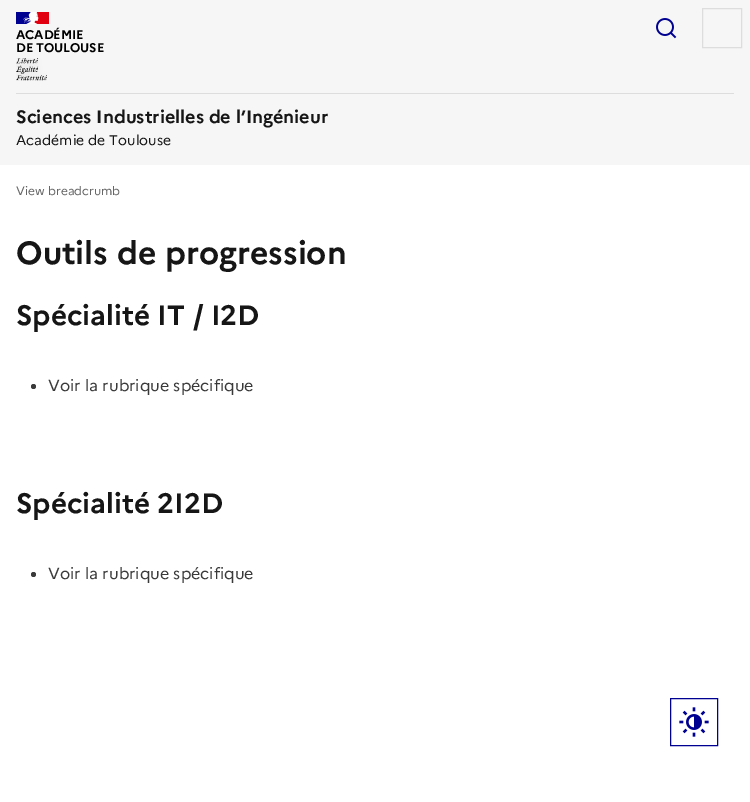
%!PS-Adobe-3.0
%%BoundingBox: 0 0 750 802
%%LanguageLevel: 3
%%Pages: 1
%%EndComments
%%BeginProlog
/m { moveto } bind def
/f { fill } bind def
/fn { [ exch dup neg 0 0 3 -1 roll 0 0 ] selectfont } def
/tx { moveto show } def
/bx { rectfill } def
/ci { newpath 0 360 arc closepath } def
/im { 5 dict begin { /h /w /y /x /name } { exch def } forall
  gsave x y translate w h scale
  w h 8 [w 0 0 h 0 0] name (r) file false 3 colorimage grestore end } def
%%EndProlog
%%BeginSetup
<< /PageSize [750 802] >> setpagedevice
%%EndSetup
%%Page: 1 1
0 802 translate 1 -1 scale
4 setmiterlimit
1 setgray
0 0 750 802 bx
0.965 setgray
0 0 750 165 bx
0 0 0.569 setrgbcolor
16 12 16 12 bx
0.882 0 0.059 setrgbcolor
34 12 15 12 bx
(image0.raw) 23 12 16 12 im
/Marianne-Bold 12.5 fn
0 setgray
16 39 m -0.1 0 (ACADÉMIE) ashow
16 52 m -0.1 0 (DE TOULOUSE) ashow
(image1.raw) 16 58 31 23 im
(image2.raw) 656 18 21 21 im
0.867 setgray
702.5 8.5 39 39 rectstroke
16 93 718 1 bx
/Marianne-Bold 18 fn
0.086 setgray
(Sciences Industrielles de l’Ingénieur) 16 123 tx
/Marianne-Regular 14 fn
(Académie de Toulouse) 16 145 tx
/Marianne-Regular 12 fn
0.4 setgray
(View breadcrumb) 16 195 tx
/Marianne-Bold 32 fn
0.086 setgray
(Outils de progression) 16 264 tx
/Marianne-Bold 28 fn
(Spécialité IT / I2D) 16 325 tx
0.227 setgray
33.5 386.5 2.5 ci f
/Marianne-Regular 16 fn
(Voir la rubrique spécifique) 48 391 tx
/Marianne-Bold 28 fn
0.086 setgray
(Spécialité 2I2D) 16 513 tx
0.227 setgray
33.5 574.5 2.5 ci f
/Marianne-Regular 16 fn
(Voir la rubrique spécifique) 48 579 tx
0 0 0.569 setrgbcolor
670.5 698.5 47 47 rectstroke
(image3.raw) 679 707 30 30 im
showpage
%%EOF
